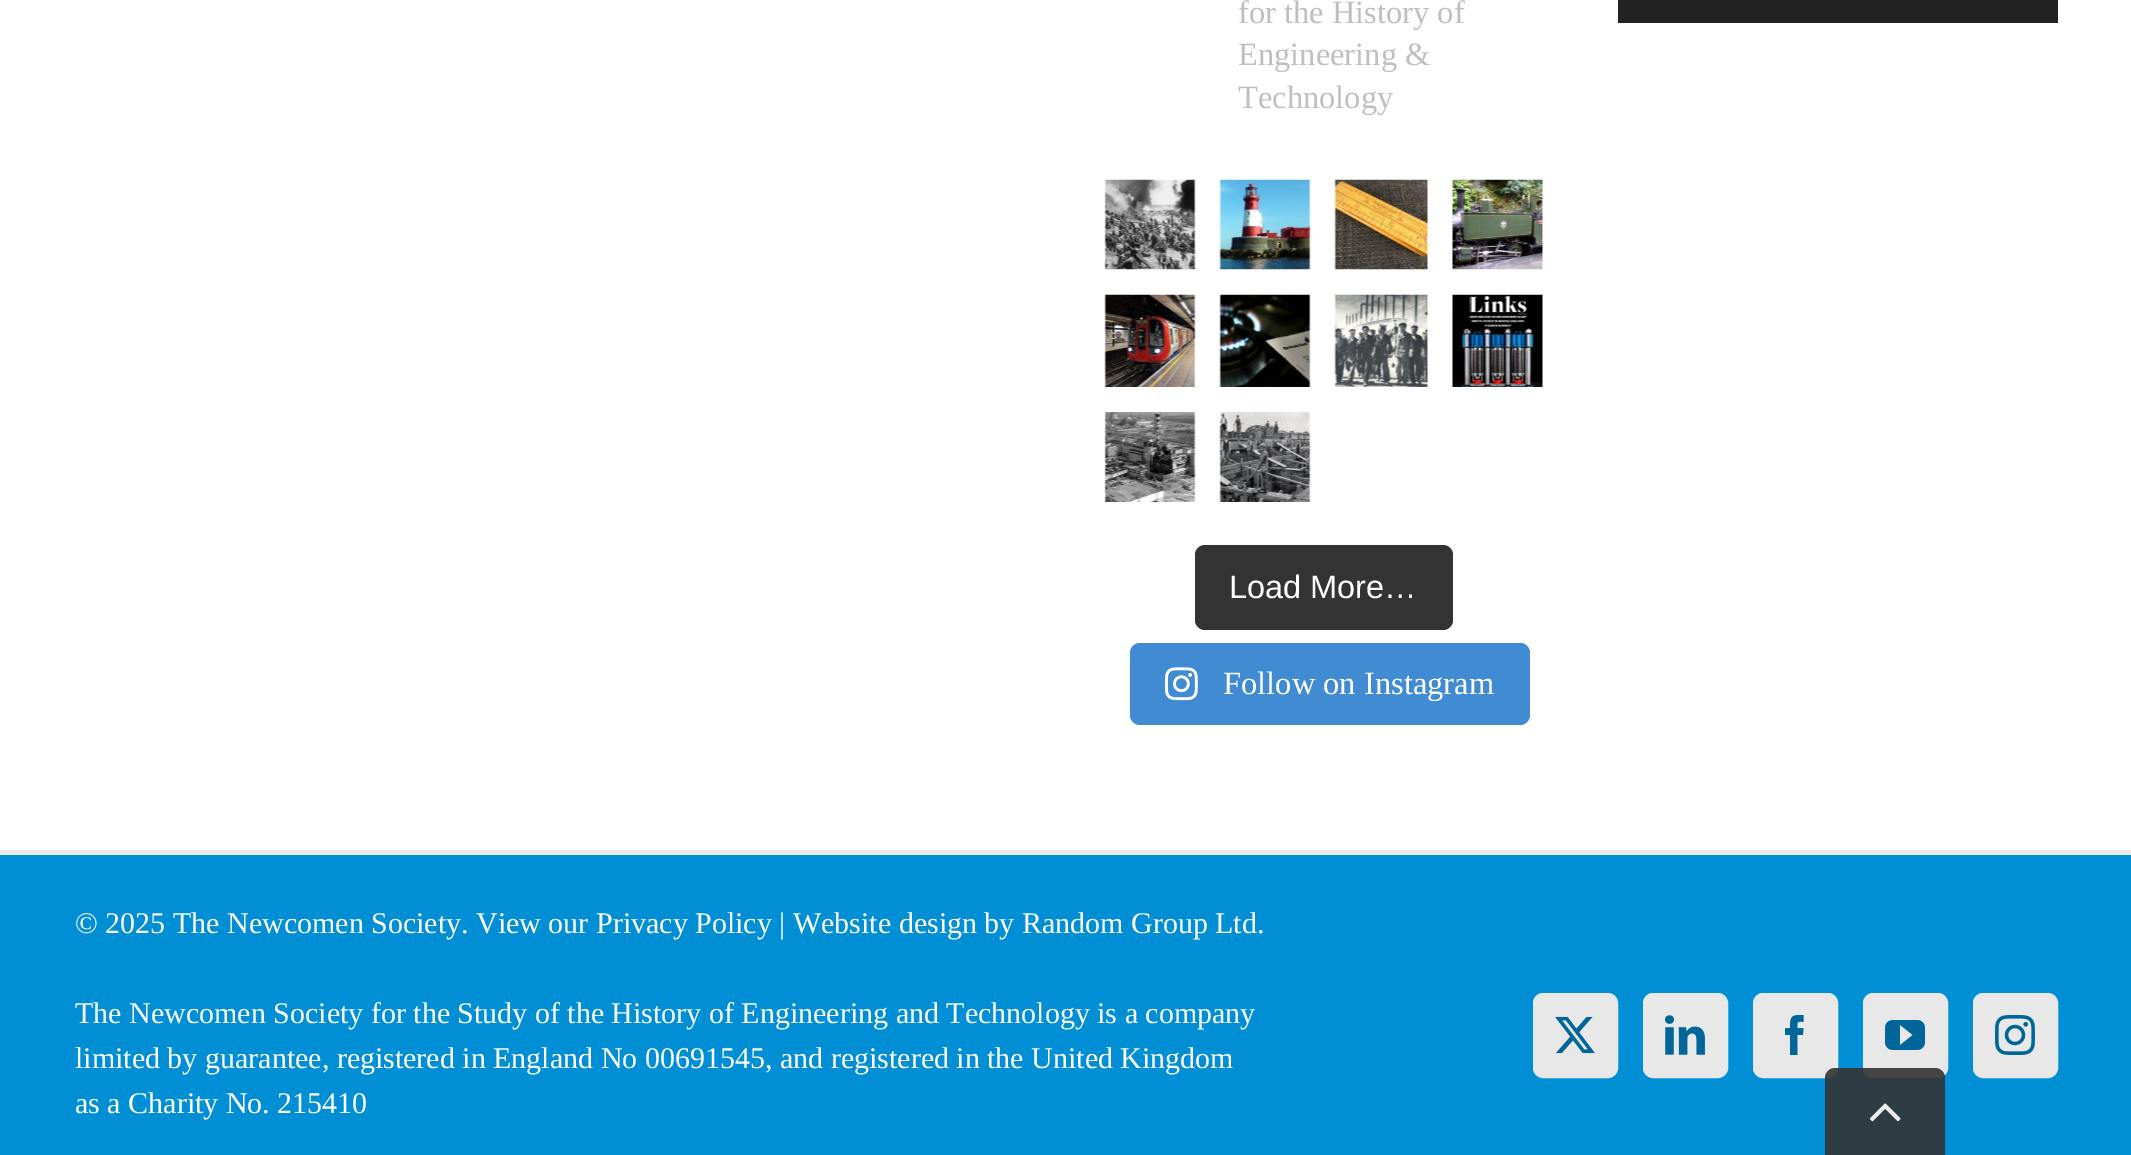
%!PS-Adobe-3.0
%%BoundingBox: 0 0 2131 1155
%%LanguageLevel: 3
%%Pages: 1
%%EndComments
%%BeginProlog
/m { moveto } bind def
/l { lineto } bind def
/c { curveto } bind def
/h { closepath } bind def
/f { fill } bind def
/S { stroke } bind def
/q { gsave } bind def
/Q { grestore } bind def
/w { setlinewidth } bind def
/fn { [ exch dup neg 0 0 3 -1 roll 0 0 ] selectfont } def
/tx { moveto show } def
/bx { rectfill } def
/al { dup .setfillconstantalpha .setstrokeconstantalpha } def
/rr { 5 dict begin { /r /h /w /y /x } { exch def } forall
  x r add y moveto x w add y 2 copy h add r arct x w add y h add x 1 index r arct
  x y h add x y r arct x y 2 copy exch w add exch r arct closepath end } def
/im { 5 dict begin { /h /w /y /x /name } { exch def } forall
  gsave x y translate w h scale
  w h 8 [w 0 0 h 0 0] name (r) file false 3 colorimage grestore end } def
%%EndProlog
%%BeginSetup
<< /PageSize [2131 1155] /PageUsesTransparency true >> setpagedevice
%%EndSetup
%%Page: 1 1
0 .pushpdf14devicefilter
0 1155 translate 1 -1 scale
4 setmiterlimit
1 setgray
0 0 2131 1155 bx
/LiberationSerif-Regular 32.5 fn
0.749 setgray
(for the History of) 1238 23 tx
(Engineering &) 1238 65 tx
(Technology) 1238 108 tx
(image0.raw) 1104 179 92 91 im
(image1.raw) 1219 179 92 91 im
(image2.raw) 1334 179 94 91 im
(image3.raw) 1452 179 91 91 im
(image4.raw) 1104 294 92 93 im
(image5.raw) 1219 294 92 93 im
(image6.raw) 1334 294 94 93 im
(image7.raw) 1452 294 91 93 im
(image8.raw) 1104 412 92 90 im
(image9.raw) 1219 412 92 90 im
0.2 setgray
1195 545 258 85 10 rr f
/LiberationSans-Regular 32.5 fn
1 setgray
(Load More…) 1229 598 tx
0.251 0.545 0.82 setrgbcolor
1130 643 400 82 10 rr f
(image10.raw) 1165 667 33 34 im
/LiberationSerif-Regular 32.5 fn
1 setgray
(Follow on Instagram) 1223 694 tx
0.133 setgray
1618 0 440 23 bx
0 0.561 0.835 setrgbcolor
0 855 2131 300 bx
0.914 0.918 0.933 setrgbcolor
0 850 2131 5 bx
/LiberationSerif-Regular 30 fn
1 setgray
(© 2025 The Newcomen Society. View our Privacy Policy | Website design by Random Group Ltd.) 75 933 tx
(The Newcomen Society for the Study of the History of Engineering and Technology is a company) 75 1023 tx
(limited by guarantee, registered in England No 00691545, and registered in the United Kingdom) 75 1068 tx
(as a Charity No. 215410) 75 1113 tx
0.91 setgray
1534.5 994.5 82 82 8.5 rr q f Q
3 w
S
(image11.raw) 1555 1016 40 38 im
1644.5 994.5 82 82 8.5 rr q f Q
S
(image12.raw) 1665 1015 40 40 im
1754.5 994.5 82 82 8.5 rr q f Q
S
(image13.raw) 1785 1015 19 40 im
1864.5 994.5 82 82 8.5 rr q f Q
S
(image14.raw) 1885 1020 40 30 im
1974.5 994.5 82 82 8.5 rr q f Q
S
(image15.raw) 1995 1015 40 40 im
0.9 al
0.2 setgray
1835 1068 m 1935 1068 l 1940.5 1068 1945 1072.5 1945 1078 c 1945 1155 l 1825 1155 l 1825 1078 l 1825 1072.5 1829.5 1068 1835 1068 c h f
1 al
(image16.raw) 1869 1103 32 19 im
.poppdf14devicefilter showpage
%%EOF
